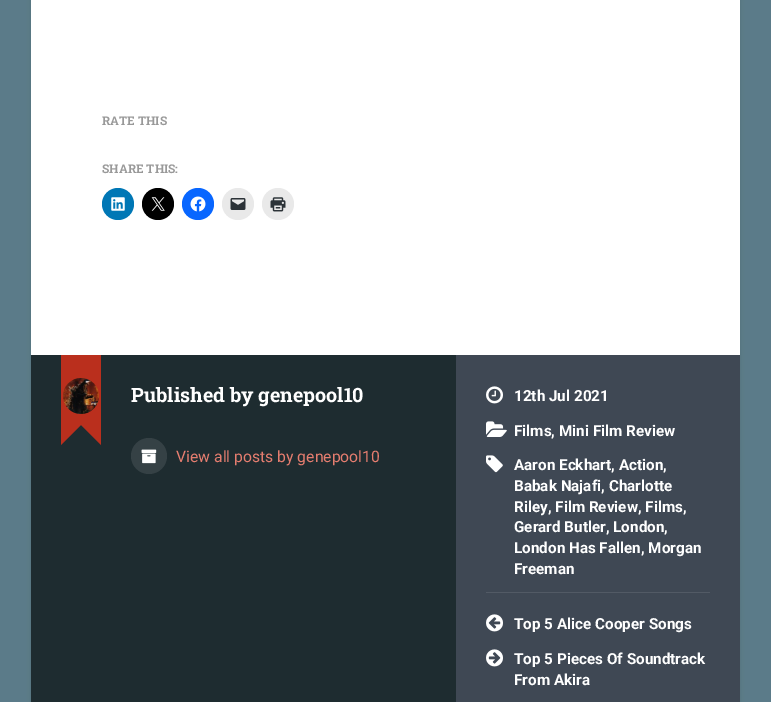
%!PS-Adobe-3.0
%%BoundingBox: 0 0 771 702
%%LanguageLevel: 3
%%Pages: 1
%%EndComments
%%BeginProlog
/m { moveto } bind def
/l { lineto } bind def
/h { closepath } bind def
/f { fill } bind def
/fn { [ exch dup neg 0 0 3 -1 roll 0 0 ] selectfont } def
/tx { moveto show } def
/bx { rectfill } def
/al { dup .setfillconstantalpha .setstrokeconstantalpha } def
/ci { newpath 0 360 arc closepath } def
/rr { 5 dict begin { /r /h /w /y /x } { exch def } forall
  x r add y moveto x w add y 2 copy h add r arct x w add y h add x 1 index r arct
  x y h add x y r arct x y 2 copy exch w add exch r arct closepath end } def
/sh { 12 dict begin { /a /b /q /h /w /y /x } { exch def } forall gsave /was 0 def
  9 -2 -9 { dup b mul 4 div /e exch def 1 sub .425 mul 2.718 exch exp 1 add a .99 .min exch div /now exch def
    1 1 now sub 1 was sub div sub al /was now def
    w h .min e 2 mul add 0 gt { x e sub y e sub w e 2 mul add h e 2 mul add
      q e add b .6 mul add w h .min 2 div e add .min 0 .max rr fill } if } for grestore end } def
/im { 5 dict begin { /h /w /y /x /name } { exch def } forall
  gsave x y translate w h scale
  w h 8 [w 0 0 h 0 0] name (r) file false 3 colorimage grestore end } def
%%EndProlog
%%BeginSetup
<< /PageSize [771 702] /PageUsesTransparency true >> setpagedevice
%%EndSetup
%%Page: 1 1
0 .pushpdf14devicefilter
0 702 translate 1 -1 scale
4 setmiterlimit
0.357 0.482 0.537 setrgbcolor
0 0 771 702 bx
0 setgray
31 -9 709 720 3 2 0.1 sh
1 setgray
31 0 709 355 bx
/RobotoSlab-Bold 12 fn
0.6 setgray
(RATE THIS) 102 125 tx
(SHARE THIS:) 102 173 tx
0 0.467 0.71 setrgbcolor
118 204 16 ci f
(image0.raw) 111 197 14 14 im
0 setgray
158 204 16 ci f
(image1.raw) 151 197 14 14 im
0.031 0.4 1 setrgbcolor
198 204 16 ci f
(image2.raw) 190 196 16 16 im
0.914 setgray
238 204 16 ci f
(image3.raw) 230 198 16 12 im
278 204 16 ci f
(image4.raw) 270 197 16 15 im
0.118 0.173 0.188 setrgbcolor
31 355 425 347 bx
0.729 0.184 0.114 setrgbcolor
101 405 m 101 445 l 81 425 l h 61 445 m 61 405 l 81 425 l h f
61 355 40 70 bx
(image5.raw) 63 378 36 36 im
/RobotoSlab-Bold 19.75 fn
1 setgray
(Published by genepool10) 131 402 tx
0.208 0.255 0.271 setrgbcolor
149 456 18 ci f
(image6.raw) 141 449 16 15 im
/Roboto-Regular 15.75 fn
0.898 0.49 0.435 setrgbcolor
(View all posts by genepool10) 176 462 tx
0.247 0.282 0.329 setrgbcolor
456 355 284 347 bx
(image7.raw) 486 386 17 18 im
/Roboto-Bold 15.25 fn
1 setgray
(12th Jul 2021) 514 401 tx
(image8.raw) 486 421 21 16 im
(Films, Mini Film Review) 514 436 tx
(image9.raw) 486 455 17 18 im
(Aaron Eckhart, Action,) 514 470 tx
(Babak Najafi, Charlotte) 514 491 tx
(Riley, Film Review, Films,) 514 512 tx
(Gerard Butler, London,) 514 532 tx
(London Has Fallen, Morgan) 514 553 tx
(Freeman) 514 574 tx
0.322 0.353 0.396 setrgbcolor
486 592 224 1 bx
(image10.raw) 486 614 17 18 im
1 setgray
(Top 5 Alice Cooper Songs) 514 629 tx
(image11.raw) 486 649 17 18 im
(Top 5 Pieces Of Soundtrack) 514 664 tx
(From Akira) 514 685 tx
.poppdf14devicefilter showpage
%%EOF
